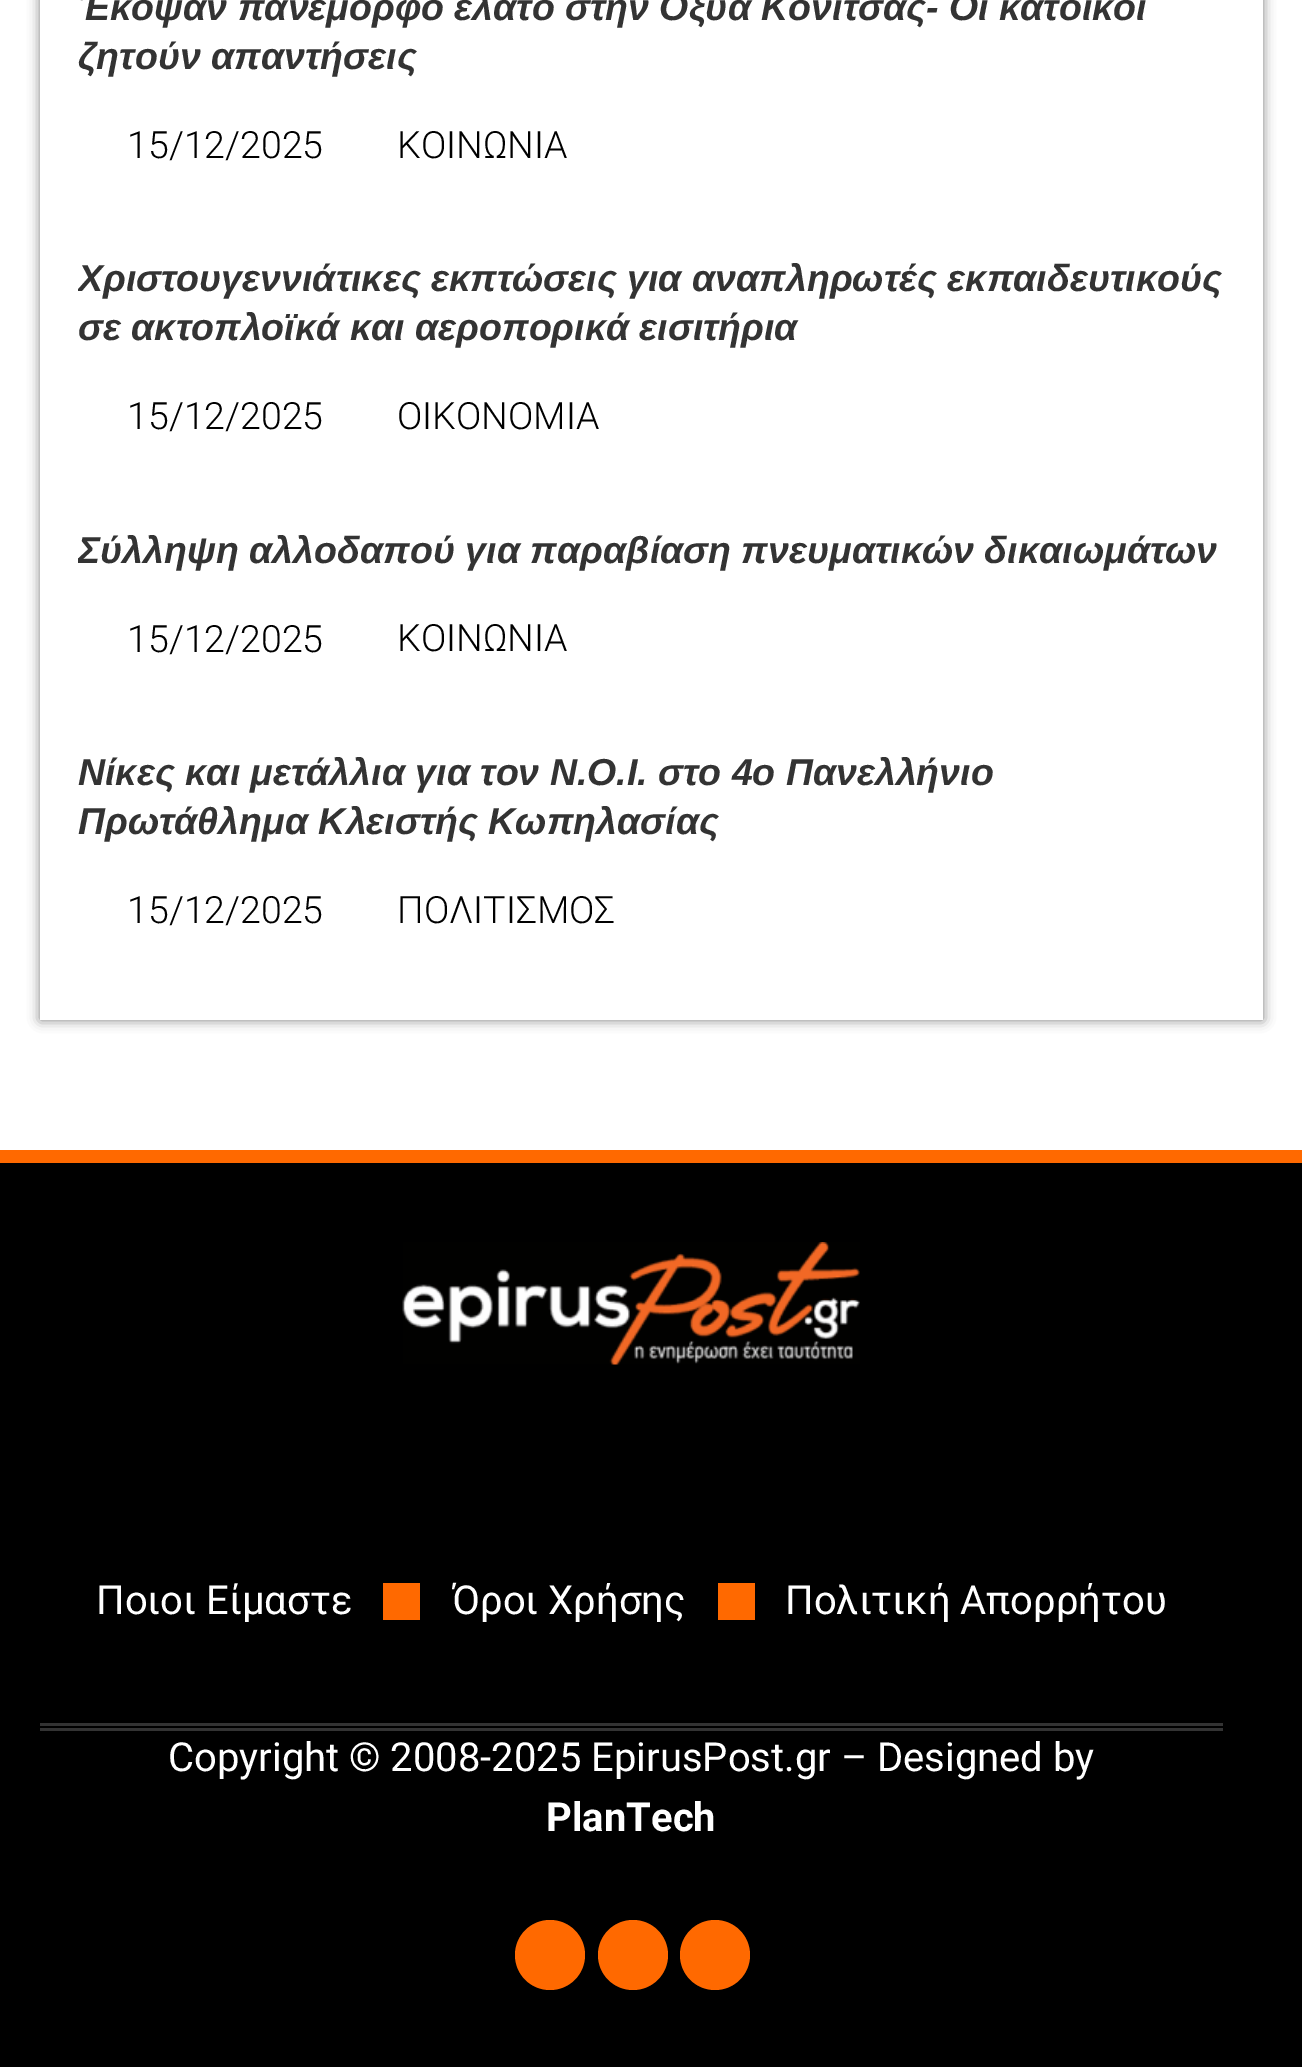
%!PS-Adobe-3.0
%%BoundingBox: 0 0 1302 2067
%%LanguageLevel: 3
%%Pages: 1
%%EndComments
%%BeginProlog
/m { moveto } bind def
/l { lineto } bind def
/h { closepath } bind def
/f { fill } bind def
/q { gsave } bind def
/Q { grestore } bind def
/fn { [ exch dup neg 0 0 3 -1 roll 0 0 ] selectfont } def
/tx { moveto show } def
/bx { rectfill } def
/al { dup .setfillconstantalpha .setstrokeconstantalpha } def
/ci { newpath 0 360 arc closepath } def
/rr { 5 dict begin { /r /h /w /y /x } { exch def } forall
  x r add y moveto x w add y 2 copy h add r arct x w add y h add x 1 index r arct
  x y h add x y r arct x y 2 copy exch w add exch r arct closepath end } def
/sh { 12 dict begin { /a /b /q /h /w /y /x } { exch def } forall gsave /was 0 def
  9 -2 -9 { dup b mul 4 div /e exch def 1 sub .425 mul 2.718 exch exp 1 add a .99 .min exch div /now exch def
    1 1 now sub 1 was sub div sub al /was now def
    w h .min e 2 mul add 0 gt { x e sub y e sub w e 2 mul add h e 2 mul add
      q e add b .6 mul add w h .min 2 div e add .min 0 .max rr fill } if } for grestore end } def
/im { 5 dict begin { /h /w /y /x /name } { exch def } forall
  gsave x y translate w h scale
  w h 8 [w 0 0 h 0 0] name (r) file false 3 colorimage grestore end } def
%%EndProlog
%%BeginSetup
<< /PageSize [1302 2067] /PageUsesTransparency true >> setpagedevice
%%EndSetup
%%Page: 1 1
0 .pushpdf14devicefilter
0 2067 translate 1 -1 scale
4 setmiterlimit
1 setgray
0 0 1302 2067 bx
q
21 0 m 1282 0 l 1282 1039 l 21 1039 l h 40 -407 m 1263 -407 l 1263 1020 l 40 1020 l h eoclip newpath
0 setgray
40 -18 1223 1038 0 6 0.5 sh
Q
/LiberationSans-BoldItalic 37.5 fn
0.2 setgray
(Έκοψαν πανέμορφο έλατο στην Οξυά Κόνιτσας- Οι κάτοικοι) 78 20 tx
(ζητούν απαντήσεις) 78 69 tx
/Roboto-Light 37.5 fn
0 setgray
(15/12/2025) 127 158 tx
(ΚΟΙΝΩΝΙΑ) 397 158 tx
q
78 255 1147 195 rectclip
/LiberationSans-BoldItalic 37.5 fn
0.2 setgray
(Χριστουγεννιάτικες εκπτώσεις για αναπληρωτές εκπαιδευτικούς) 78 291 tx
Q
/LiberationSans-BoldItalic 37.5 fn
0.2 setgray
(σε ακτοπλοϊκά και αεροπορικά εισιτήρια) 78 340 tx
/Roboto-Light 37.5 fn
0 setgray
(15/12/2025) 127 429 tx
(ΟΙΚΟΝΟΜΙΑ) 397 429 tx
q
78 525 1147 148 rectclip
/LiberationSans-BoldItalic 37.5 fn
0.2 setgray
(Σύλληψη αλλοδαπού για παραβίαση πνευματικών δικαιωμάτων) 78 563 tx
Q
(15/12/2025) 127 652 tx
(ΚΟΙΝΩΝΙΑ) 397 651 tx
/LiberationSans-BoldItalic 37.5 fn
0.2 setgray
(Νίκες και μετάλλια για τον Ν.Ο.Ι. στο 4ο Πανελλήνιο) 78 785 tx
(Πρωτάθλημα Κλειστής Κωπηλασίας) 78 834 tx
/Roboto-Light 37.5 fn
0 setgray
(15/12/2025) 127 923 tx
(ΠΟΛΙΤΙΣΜΟΣ) 397 923 tx
0 1163 1302 904 bx
1 0.412 0 setrgbcolor
0 1150 1302 13 bx
(image0.raw) 402 1242 458 123 im
/Roboto-Regular 40 fn
1 setgray
(Ποιοι Είμαστε) 96 1614 tx
1 0.412 0 setrgbcolor
383 1583 37 37 bx
1 setgray
(Όροι Χρήσης) 452 1614 tx
1 0.412 0 setrgbcolor
718 1583 37 37 bx
1 setgray
(Πολιτική Απορρήτου) 785 1614 tx
0.2 setgray
40 1723 1183 3 bx
40 1728 1183 3 bx
1 setgray
(Copyright © 2008-2025 EpirusPost.gr – Designed by) 168 1771 tx
/Roboto-Bold 40 fn
(PlanTech) 546 1831 tx
1 0.412 0 setrgbcolor
550 1955 35 ci f
633 1955 35 ci f
715 1955 35 ci f
.poppdf14devicefilter showpage
%%EOF
